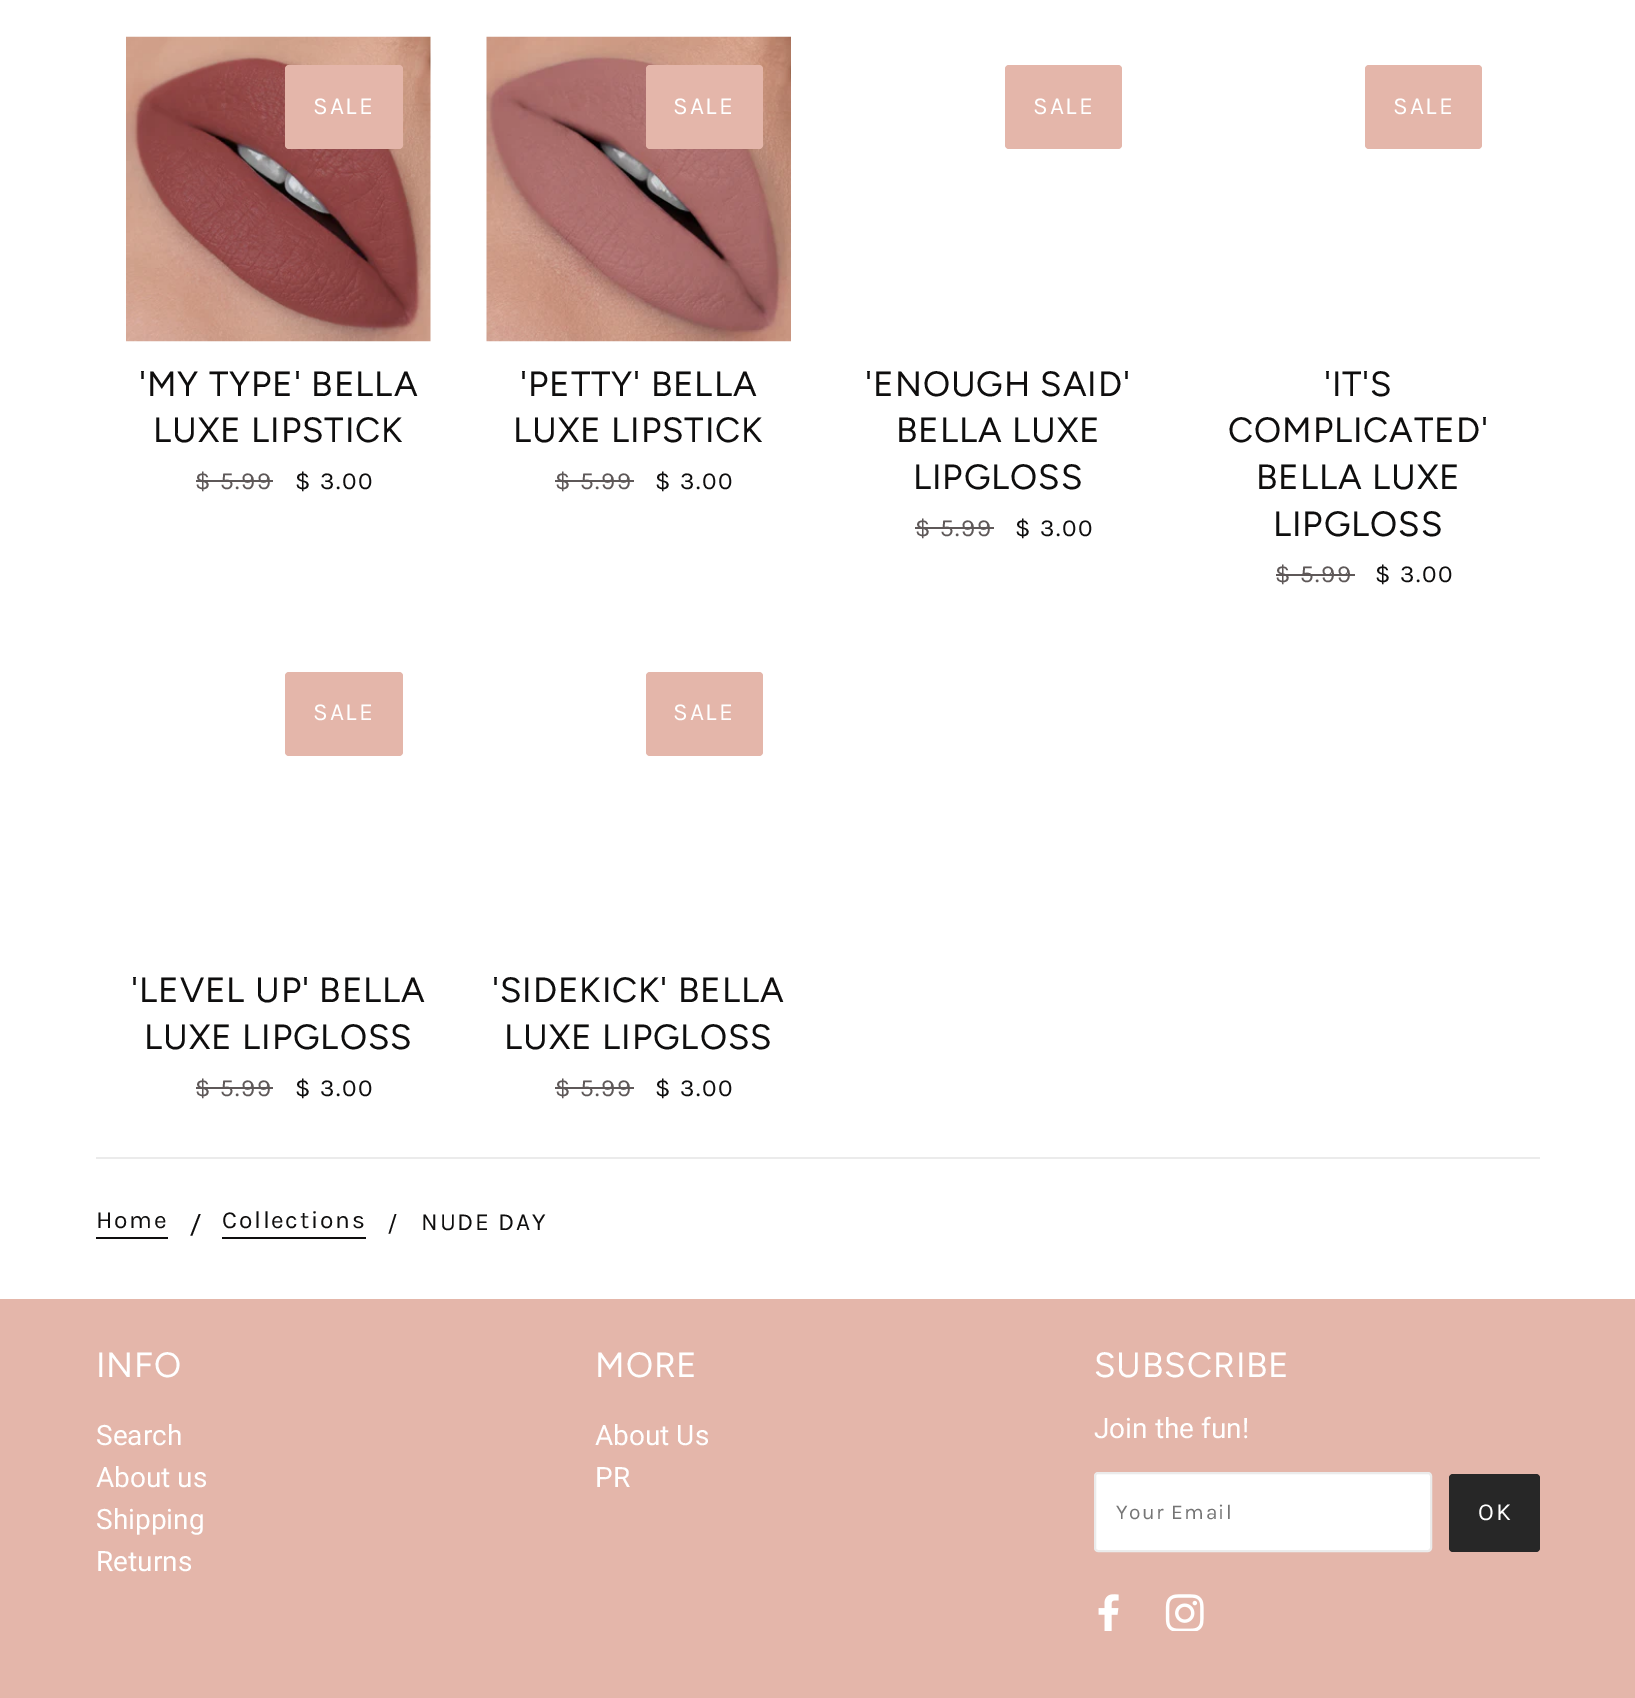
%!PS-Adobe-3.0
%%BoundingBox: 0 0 1635 1698
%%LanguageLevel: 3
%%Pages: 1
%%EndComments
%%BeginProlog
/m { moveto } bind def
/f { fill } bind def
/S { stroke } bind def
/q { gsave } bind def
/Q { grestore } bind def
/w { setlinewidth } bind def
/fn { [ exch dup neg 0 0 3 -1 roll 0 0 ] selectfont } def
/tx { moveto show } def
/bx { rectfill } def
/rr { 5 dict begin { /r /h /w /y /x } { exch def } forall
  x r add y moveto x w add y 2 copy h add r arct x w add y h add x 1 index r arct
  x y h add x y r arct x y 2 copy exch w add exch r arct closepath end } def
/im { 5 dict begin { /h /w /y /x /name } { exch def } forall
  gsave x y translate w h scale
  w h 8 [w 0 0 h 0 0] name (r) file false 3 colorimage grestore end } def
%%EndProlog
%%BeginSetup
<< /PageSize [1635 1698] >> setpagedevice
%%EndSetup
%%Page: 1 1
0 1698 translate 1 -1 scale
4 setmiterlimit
1 setgray
0 0 1635 1698 bx
(image0.raw) 126 36 305 306 im
0.894 0.714 0.667 setrgbcolor
285 65 118 84 4 rr f
/Karla-Regular 24.5 fn
1 setgray
313 114 m 1.75 0 (SALE) ashow
/Figtree-Regular 35 fn
0.059 0.055 0.055 setrgbcolor
139 396 m 0.9 0 ('MY TYPE' BELLA) ashow
153 442 m 0.9 0 (LUXE LIPSTICK) ashow
/Karla-Regular 24.5 fn
0.369 0.345 0.345 setrgbcolor
195 489 m 1.75 0 ($ 5.99) ashow
196 480 77 2 bx
0.059 0.055 0.055 setrgbcolor
295 489 m 1.75 0 ($ 3.00) ashow
(image1.raw) 486 36 305 306 im
0.894 0.714 0.667 setrgbcolor
646 65 117 84 4 rr f
1 setgray
673 114 m 1.75 0 (SALE) ashow
/Figtree-Regular 35 fn
0.059 0.055 0.055 setrgbcolor
520 396 m 0.9 0 ('PETTY' BELLA) ashow
513 442 m 0.9 0 (LUXE LIPSTICK) ashow
/Karla-Regular 24.5 fn
0.369 0.345 0.345 setrgbcolor
555 489 m 1.75 0 ($ 5.99) ashow
555 480 79 2 bx
0.059 0.055 0.055 setrgbcolor
655 489 m 1.75 0 ($ 3.00) ashow
0.894 0.714 0.667 setrgbcolor
1005 65 117 84 4 rr f
1 setgray
1033 114 m 1.75 0 (SALE) ashow
/Figtree-Regular 35 fn
0.059 0.055 0.055 setrgbcolor
865 396 m 0.9 0 ('ENOUGH SAID') ashow
896 442 m 0.9 0 (BELLA LUXE) ashow
913 489 m 0.9 0 (LIPGLOSS) ashow
/Karla-Regular 24.5 fn
0.369 0.345 0.345 setrgbcolor
915 536 m 1.75 0 ($ 5.99) ashow
915 527 79 2 bx
0.059 0.055 0.055 setrgbcolor
1015 536 m 1.75 0 ($ 3.00) ashow
0.894 0.714 0.667 setrgbcolor
1365 65 117 84 4 rr f
1 setgray
1393 114 m 1.75 0 (SALE) ashow
/Figtree-Regular 35 fn
0.059 0.055 0.055 setrgbcolor
1324 396 m 0.9 0 ('IT'S) ashow
1228 442 m 0.9 0 (COMPLICATED') ashow
1256 489 m 0.9 0 (BELLA LUXE) ashow
1273 536 m 0.9 0 (LIPGLOSS) ashow
/Karla-Regular 24.5 fn
0.369 0.345 0.345 setrgbcolor
1275 582 m 1.75 0 ($ 5.99) ashow
1276 574 79 2 bx
0.059 0.055 0.055 setrgbcolor
1375 582 m 1.75 0 ($ 3.00) ashow
0.894 0.714 0.667 setrgbcolor
285 672 118 84 4 rr f
1 setgray
313 720 m 1.75 0 (SALE) ashow
/Figtree-Regular 35 fn
0.059 0.055 0.055 setrgbcolor
131 1002 m 0.9 0 ('LEVEL UP' BELLA) ashow
144 1049 m 0.9 0 (LUXE LIPGLOSS) ashow
/Karla-Regular 24.5 fn
0.369 0.345 0.345 setrgbcolor
195 1096 m 1.75 0 ($ 5.99) ashow
196 1087 77 2 bx
0.059 0.055 0.055 setrgbcolor
295 1096 m 1.75 0 ($ 3.00) ashow
0.894 0.714 0.667 setrgbcolor
646 672 117 84 4 rr f
1 setgray
673 720 m 1.75 0 (SALE) ashow
/Figtree-Regular 35 fn
0.059 0.055 0.055 setrgbcolor
492 1002 m 0.9 0 ('SIDEKICK' BELLA) ashow
504 1049 m 0.9 0 (LUXE LIPGLOSS) ashow
/Karla-Regular 24.5 fn
0.369 0.345 0.345 setrgbcolor
555 1096 m 1.75 0 ($ 5.99) ashow
555 1087 79 2 bx
0.059 0.055 0.055 setrgbcolor
655 1096 m 1.75 0 ($ 3.00) ashow
0.922 setgray
96 1157 1444 2 bx
0.059 0.055 0.055 setrgbcolor
96 1228 m 1.75 0 (Home) ashow
96 1237 72 2 bx
/Roboto-Regular 28 fn
(/) 190 1234 tx
/Karla-Regular 24.5 fn
222 1228 m 1.75 0 (Collections) ashow
222 1237 144 2 bx
387 1232 m 1.75 0 (/) ashow
421 1230 m 1.75 0 (NUDE DAY) ashow
0.894 0.714 0.667 setrgbcolor
0 1299 1635 399 bx
/Figtree-Regular 35 fn
1 setgray
96 1377 m 0.9 0 (INFO) ashow
/Roboto-Regular 28 fn
(Search) 96 1445 tx
(About us) 96 1487 tx
(Shipping) 96 1529 tx
(Returns) 96 1571 tx
/Figtree-Regular 35 fn
595 1377 m 0.9 0 (MORE) ashow
/Roboto-Regular 28 fn
(About Us) 595 1445 tx
(PR) 595 1487 tx
/Figtree-Regular 35 fn
1094 1377 m 0.9 0 (SUBSCRIBE) ashow
/Roboto-Regular 28 fn
(Join the fun!) 1094 1438 tx
1095 1473 336 78 3 rr q f Q
0.922 setgray
2 w
S
/Karla-Regular 21 fn
0.459 setgray
1116 1519 m 1.4 0 (Your Email) ashow
0.153 setgray
1449 1474 91 78 4 rr f
/Karla-Regular 24.5 fn
1 setgray
1478 1520 m 1.75 0 (OK) ashow
(image2.raw) 1098 1594 21 37 im
(image3.raw) 1165 1594 39 37 im
showpage
%%EOF
